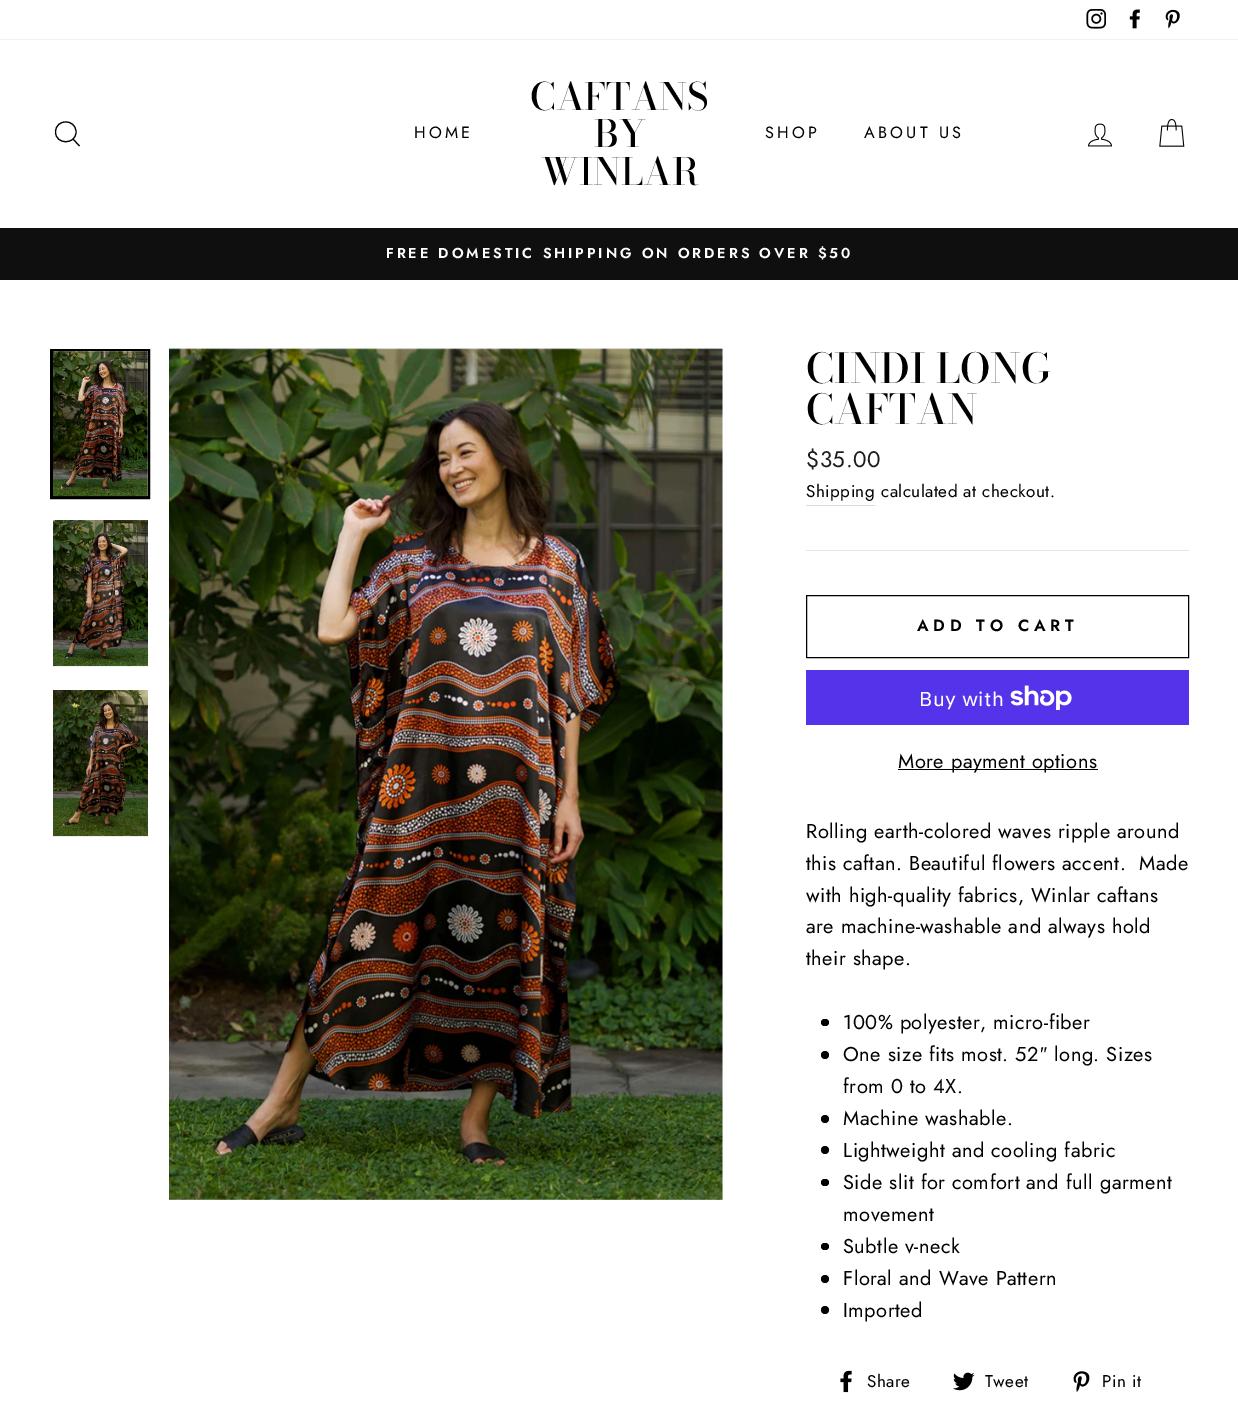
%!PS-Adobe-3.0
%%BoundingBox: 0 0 1238 1425
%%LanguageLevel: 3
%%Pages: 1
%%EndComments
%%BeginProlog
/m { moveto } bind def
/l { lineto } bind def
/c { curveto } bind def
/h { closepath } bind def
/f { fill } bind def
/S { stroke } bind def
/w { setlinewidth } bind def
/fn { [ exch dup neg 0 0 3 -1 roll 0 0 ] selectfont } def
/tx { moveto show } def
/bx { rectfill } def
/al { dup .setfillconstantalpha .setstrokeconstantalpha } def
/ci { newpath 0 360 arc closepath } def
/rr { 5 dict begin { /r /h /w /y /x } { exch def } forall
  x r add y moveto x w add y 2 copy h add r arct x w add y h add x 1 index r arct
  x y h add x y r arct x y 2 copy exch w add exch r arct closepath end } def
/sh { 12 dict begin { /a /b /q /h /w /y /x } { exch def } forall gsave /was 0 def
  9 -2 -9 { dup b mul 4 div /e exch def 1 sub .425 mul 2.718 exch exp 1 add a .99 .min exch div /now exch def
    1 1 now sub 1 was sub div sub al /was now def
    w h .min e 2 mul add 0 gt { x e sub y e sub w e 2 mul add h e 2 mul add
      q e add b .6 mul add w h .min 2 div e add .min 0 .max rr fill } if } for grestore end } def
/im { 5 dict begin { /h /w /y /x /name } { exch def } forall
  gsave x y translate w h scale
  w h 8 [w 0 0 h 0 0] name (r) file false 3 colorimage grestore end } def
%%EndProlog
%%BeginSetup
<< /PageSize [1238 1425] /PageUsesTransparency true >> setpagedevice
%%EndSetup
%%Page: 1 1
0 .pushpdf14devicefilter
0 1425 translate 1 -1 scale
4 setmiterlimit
1 setgray
0 0 1238 1425 bx
(image0.raw) 1086 9 20 20 im
(image1.raw) 1129 9 11 20 im
(image2.raw) 1165 9 15 20 im
0 setgray
0 40 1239 188 0 0.5 0.2 sh
1 setgray
0 40 1238 188 bx
0 setgray
1.1 w
76 132 m 76 145 55.5 145 55.5 132 c 55.5 118.5 76 118.5 76 132 c h 79.5 146 m 73 139 l S
/Jost-Regular 16.25 fn
414 138 m 3.25 0 (HOME) ashow
/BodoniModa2-Medium 37.5 fn
(CAFTANS) 530 110 tx
(BY) 594 147 tx
(WINLAR) 541 185 tx
/Jost-Regular 16.25 fn
765 138 m 3.25 0 (SHOP) ashow
864 138 m 3.25 0 (ABOUT US) ashow
(image3.raw) 1088 123 24 24 im
(image4.raw) 1159 119 26 28 im
0.059 setgray
0 228 1238 52 bx
/Jost-SemiBold 14.45 fn
1 setgray
386 258 m 2.9 0 (FREE DOMESTIC SHIPPING ON ORDERS OVER $50) ashow
0 setgray
3 w
51.5 350.5 97 147 rectstroke
1 setgray
53 351 95 145 bx
(image5.raw) 53 351 95 146 im
(image6.raw) 53 520 95 147 im
(image7.raw) 53 690 95 147 im
(image8.raw) 169 348 554 852 im
/BodoniModa-Medium 41 fn
0 setgray
(CINDI LONG) 806 383 tx
(CAFTAN) 806 424 tx
/Jost-Regular 22.5 fn
0.11 0.114 0.114 setrgbcolor
806 467 m 0.5 0 ($35.00) ashow
0.851 setgray
806 505 69 1 bx
/Jost-Regular 17 fn
0 setgray
806 497 m 0.5 0 (Shipping) ashow
881 497 m 0.5 0 (calculated at checkout.) ashow
0.91 0.91 0.882 setrgbcolor
806 550 383 1 bx
0 setgray
1 w
806.5 595.5 382 62 rectstroke
/Jost-SemiBold 16.25 fn
917 631 m 4.9 0 (ADD TO CART) ashow
0.329 0.2 0.922 setrgbcolor
806 670 383 55 bx
/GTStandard-Regular 20 fn
1 setgray
919 706 m 0.5 0 (Buy with) ashow
(image9.raw) 1010 685 62 25 im
0 setgray
898 769 200 1 bx
/Jost-Regular 20 fn
898 768 m 0.5 0 (More payment options) ashow
806 838 m 0.5 0 (Rolling earth-colored waves ripple around) ashow
806 870 m 0.5 0 (this caftan. Beautiful flowers accent.  Made) ashow
806 902 m 0.5 0 (with high-quality fabrics, Winlar caftans) ashow
806 933 m 0.5 0 (are machine-washable and always hold) ashow
806 965 m 0.5 0 (their shape.) ashow
821 1019 8 7 3.5 rr f
843 1029 m 0.5 0 (100% polyester, micro-fiber) ashow
843 1061 m 0.5 0 (One size fits most. 52) ashow
/LiberationSans-Regular 20 fn
1040 1061 m 0.5 0 (″) ashow
/Jost-Regular 20 fn
1054 1061 m 0.5 0 (long. Sizes) ashow
825 1055 4 ci f
843 1093 m 0.5 0 (from 0 to 4X.) ashow
825 1119 4 ci f
843 1125 m 0.5 0 (Machine washable.) ashow
825 1150 4 ci f
843 1157 m 0.5 0 (Lightweight and cooling fabric) ashow
821 1179 8 7 3.5 rr f
843 1189 m 0.5 0 (Side slit for comfort and full garment) ashow
843 1221 m 0.5 0 (movement) ashow
821 1243 8 7 3.5 rr f
843 1253 m 0.5 0 (Subtle v-neck) ashow
825 1279 4 ci f
843 1285 m 0.5 0 (Floral and Wave Pattern) ashow
825 1310 4 ci f
843 1317 m 0.5 0 (Imported) ashow
(image10.raw) 840 1370 12 23 im
/Jost-Regular 17 fn
867 1387 m 0.5 0 (Share) ashow
(image11.raw) 953 1372 22 19 im
985 1387 m 0.5 0 (Tweet) ashow
(image12.raw) 1073 1371 17 21 im
1102 1387 m 0.5 0 (Pin it) ashow
.poppdf14devicefilter showpage
%%EOF
